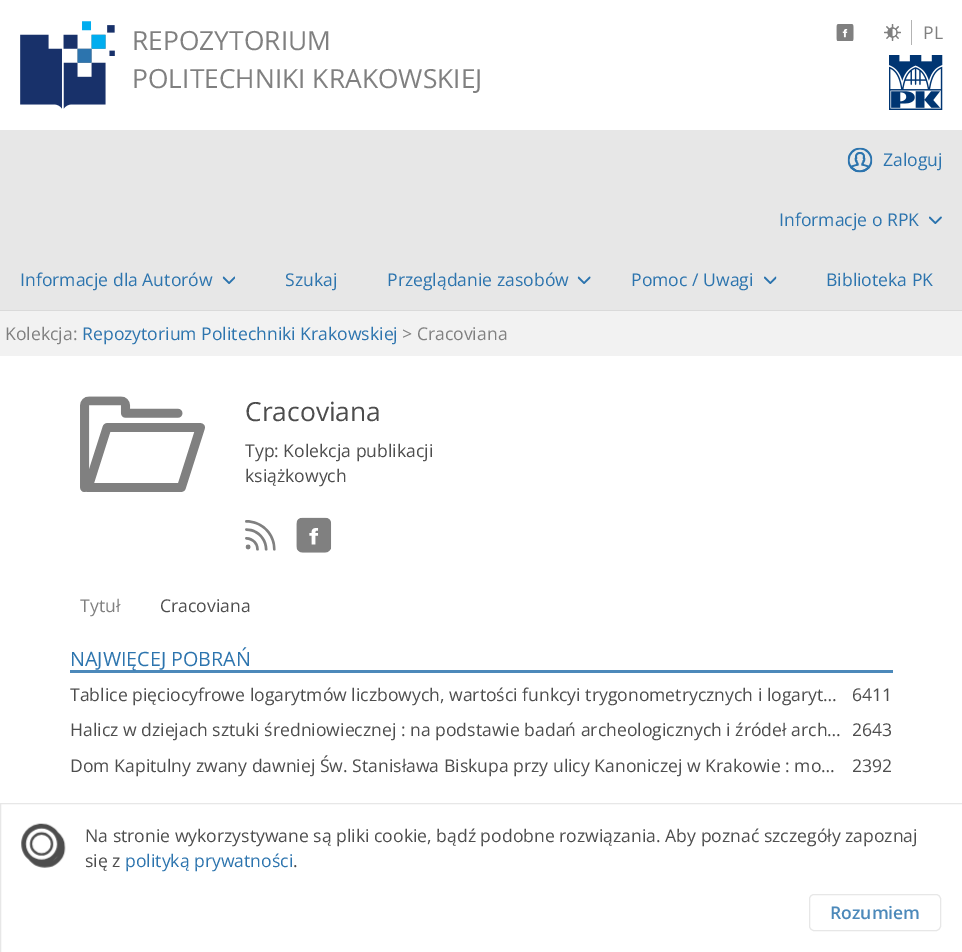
%!PS-Adobe-3.0
%%BoundingBox: 0 0 962 952
%%LanguageLevel: 3
%%Pages: 1
%%EndComments
%%BeginProlog
/S { stroke } bind def
/fn { [ exch dup neg 0 0 3 -1 roll 0 0 ] selectfont } def
/tx { moveto show } def
/bx { rectfill } def
/rr { 5 dict begin { /r /h /w /y /x } { exch def } forall
  x r add y moveto x w add y 2 copy h add r arct x w add y h add x 1 index r arct
  x y h add x y r arct x y 2 copy exch w add exch r arct closepath end } def
/im { 5 dict begin { /h /w /y /x /name } { exch def } forall
  gsave x y translate w h scale
  w h 8 [w 0 0 h 0 0] name (r) file false 3 colorimage grestore end } def
%%EndProlog
%%BeginSetup
<< /PageSize [962 952] >> setpagedevice
%%EndSetup
%%Page: 1 1
0 952 translate 1 -1 scale
4 setmiterlimit
1 setgray
0 0 962 952 bx
(image0.raw) 20 21 95 88 im
/OpenSans-Regular 26.4 fn
0.502 setgray
(REPOZYTORIUM) 132 50 tx
(POLITECHNIKI KRAKOWSKIEJ) 132 88 tx
(image1.raw) 836 24 18 17 im
(image2.raw) 884 24 17 17 im
0.702 setgray
911 20 1 25 bx
/OpenSans-Regular 17.6 fn
0.502 setgray
(PL) 923 39 tx
(image3.raw) 889 55 54 55 im
0.906 setgray
0 130 962 180 bx
0.855 setgray
0 310 962 1 bx
(image4.raw) 847 147 26 26 im
0.173 0.455 0.682 setrgbcolor
(Zaloguj) 883 166 tx
(Informacje o RPK) 779 226 tx
(image5.raw) 929 216 13 8 im
(Informacje dla Autorów) 20 286 tx
(image6.raw) 222 276 13 8 im
(Szukaj) 285 286 tx
(Przeglądanie zasobów) 387 286 tx
(image7.raw) 577 276 14 8 im
(Pomoc / Uwagi) 631 286 tx
(image8.raw) 764 276 13 8 im
(Biblioteka PK) 826 286 tx
0.949 setgray
0 311 962 45 bx
0.502 setgray
(Kolekcja:) 5 340 tx
0.173 0.455 0.682 setrgbcolor
(Repozytorium Politechniki Krakowskiej) 82 340 tx
0.502 setgray
(> Cracoviana) 402 340 tx
(image9.raw) 80 396 125 96 im
/OpenSans-Regular 26.4 fn
0.302 setgray
(Cracoviana) 245 421 tx
/OpenSans-Regular 17.6 fn
(Typ: Kolekcja publikacji) 245 457 tx
(książkowych) 245 482 tx
(image10.raw) 245 520 31 31 im
(image11.raw) 296 517 36 36 im
0.502 setgray
(Tytuł) 80 612 tx
0.302 setgray
(Cracoviana) 160 612 tx
0.298 0.537 0.729 setrgbcolor
70 670 823 3 bx
/OpenSans-Regular 19.75 fn
0.173 0.455 0.682 setrgbcolor
(NAJWIĘCEJ POBRAŃ) 70 666 tx
/OpenSans-Regular 17.6 fn
0.302 setgray
(Tablice pięciocyfrowe logarytmów liczbowych, wartości funkcyi trygonometrycznych i logaryt…) 70 701 tx
(6411) 852 701 tx
(Halicz w dziejach sztuki średniowiecznej : na podstawie badań archeologicznych i źródeł arch…) 70 736 tx
(2643) 852 736 tx
(Dom Kapitulny zwany dawniej Św. Stanisława Biskupa przy ulicy Kanoniczej w Krakowie : mo…) 70 772 tx
(2392) 852 772 tx
0.906 setgray
0.5 803.5 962 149 rectstroke
(image12.raw) 21 823 45 45 im
0.302 setgray
(Na stronie wykorzystywane są pliki cookie, bądź podobne rozwiązania. Aby poznać szczegóły zapoznaj) 85 842 tx
(się z) 85 867 tx
0.173 0.455 0.682 setrgbcolor
(polityką prywatności) 125 867 tx
0.302 setgray
(.) 293 867 tx
0.906 setgray
809.5 894.5 131 36 4.5 rr S
/OpenSans-SemiBold 17.6 fn
0.298 0.537 0.729 setrgbcolor
(Rozumiem) 830 919 tx
showpage
%%EOF
